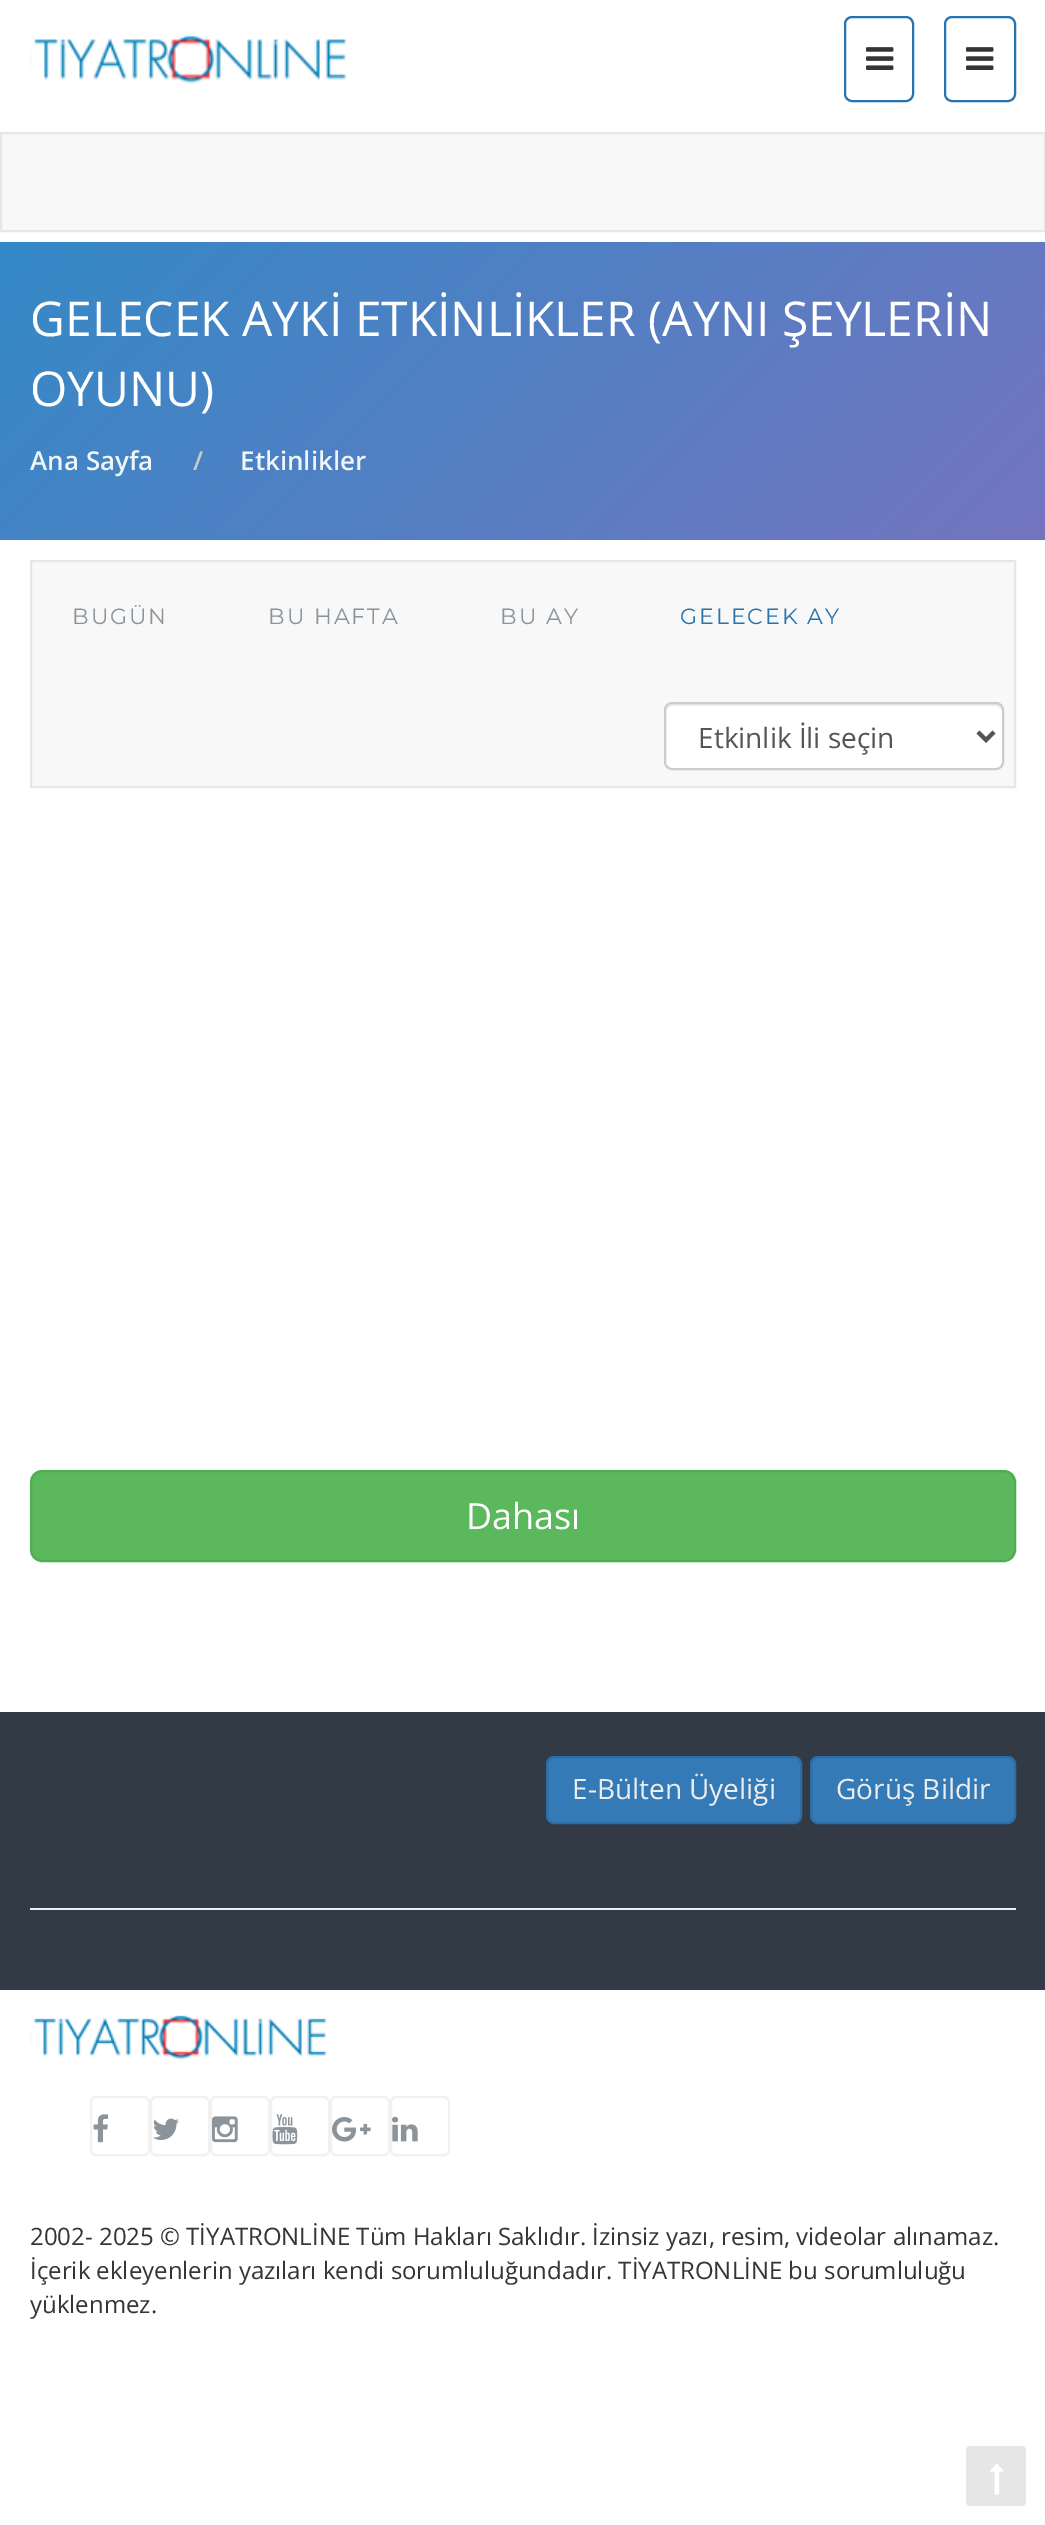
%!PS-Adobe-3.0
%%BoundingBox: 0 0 1045 2525
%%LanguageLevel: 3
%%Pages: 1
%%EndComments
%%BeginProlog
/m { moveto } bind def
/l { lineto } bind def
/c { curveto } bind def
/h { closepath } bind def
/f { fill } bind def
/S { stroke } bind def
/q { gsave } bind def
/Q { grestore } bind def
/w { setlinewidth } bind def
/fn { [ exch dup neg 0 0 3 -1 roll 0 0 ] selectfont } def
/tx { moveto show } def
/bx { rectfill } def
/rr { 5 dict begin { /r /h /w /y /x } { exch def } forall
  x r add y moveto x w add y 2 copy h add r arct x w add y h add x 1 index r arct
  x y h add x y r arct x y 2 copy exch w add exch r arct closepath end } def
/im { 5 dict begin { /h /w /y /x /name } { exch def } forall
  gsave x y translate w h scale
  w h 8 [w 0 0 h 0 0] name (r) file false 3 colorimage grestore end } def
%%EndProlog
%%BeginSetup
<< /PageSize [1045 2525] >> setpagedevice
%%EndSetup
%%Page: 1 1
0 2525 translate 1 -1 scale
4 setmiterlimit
1 setgray
0 0 1045 2525 bx
(image0.raw) 30 36 317 48 im
0.157 0.451 0.675 setrgbcolor
2 w
845 17 68 84 7 rr S
(image1.raw) 866 47 28 23 im
945 17 70 84 7 rr S
(image1.raw) 966 47 28 23 im
0.973 setgray
1 133 m 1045 133 l 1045 231 l 1 231 l h q f Q
0.906 setgray
S
q 0 242 m 1045 242 l 1045 540 l 0 540 l h clip newpath
<< /ShadingType 2 /ColorSpace /DeviceRGB /Coords [859 727 187 55] /Extend [true true] /Function << /FunctionType 2 /Domain [0 1] /C0 [0.455 0.455 0.749] /C1 [0.204 0.541 0.78] /N 1 >> >> shfill Q
/OpenSans-Regular 48 fn
1 setgray
(GELECEK AYKİ ETKİNLİKLER \(AYNI ŞEYLERİN) 30 336 tx
(OYUNU\)) 30 406 tx
/OpenSans-SemiBold 26 fn
0.945 0.961 0.976 setrgbcolor
(Ana Sayfa) 30 470 tx
0.8 setgray
(/) 193 470 tx
0.945 0.961 0.976 setrgbcolor
(Etkinlikler) 240 470 tx
0.973 setgray
31 561 m 1015 561 l 1015 787 l 31 787 l h q f Q
0.906 setgray
S
/Montserrat-Thin 22 fn
0.545 0.58 0.608 setrgbcolor
72 624 m 2 0 (BUGÜN) ashow
268 624 m 2 0 (BU HAFTA) ashow
500 624 m 2 0 (BU AY) ashow
0.157 0.451 0.675 setrgbcolor
680 624 m 2 0 (GELECEK AY) ashow
1 setgray
664 702 340 68 8 rr f
0.925 setgray
672 706 m 996 706 l 999 706 1002 709 1002 712 c 1002 710 l 1002 707 999 704 996 704 c 672 704 l 669 704 666 707 666 710 c 666 712 l 666 709 669 706 672 706 c h f
0.8 setgray
665 703 338 66 7 rr S
0.333 setgray
4 w
978 732 m 986 740 l 994 732 l S
/OpenSans-Regular 28 fn
(Etkinlik İli seçin) 698 748 tx
0.361 0.722 0.361 setrgbcolor
31 1471 984 90 11 rr q f Q
0.298 0.682 0.298 setrgbcolor
2 w
S
/OpenSans-Regular 36 fn
1 setgray
(Dahası) 466 1529 tx
0.196 0.227 0.271 setrgbcolor
0 1712 1045 278 bx
0.2 0.478 0.718 setrgbcolor
547 1757 254 66 7 rr q f Q
0.18 0.427 0.643 setrgbcolor
S
/OpenSans-Regular 28 fn
0.929 setgray
(E-Bülten Üyeliği) 572 1799 tx
0.2 0.478 0.718 setrgbcolor
811 1757 204 66 7 rr q f Q
0.18 0.427 0.643 setrgbcolor
S
0.929 setgray
(Görüş Bildir) 836 1799 tx
0.933 setgray
30 1908 986 2 bx
(image2.raw) 30 2015 297 45 im
0.945 setgray
91 2097 58 58 5 rr S
(image3.raw) 93 2114 16 29 im
151 2097 58 58 5 rr S
(image4.raw) 153 2118 26 22 im
211 2097 58 58 5 rr S
(image5.raw) 212 2116 26 27 im
271 2097 58 58 5 rr S
(image6.raw) 272 2114 26 31 im
331 2097 58 58 5 rr S
(image7.raw) 332 2117 39 25 im
391 2097 58 58 5 rr S
(image8.raw) 392 2116 26 26 im
/OpenSans-Regular 24 fn
0.208 setgray
(2002- 2025 © TİYATRONLİNE Tüm Hakları Saklıdır. İzinsiz yazı, resim, videolar alınamaz.) 30 2245 tx
(İçerik ekleyenlerin yazıları kendi sorumluluğundadır. TİYATRONLİNE bu sorumluluğu) 30 2279 tx
(yüklenmez.) 30 2313 tx
0.902 setgray
966 2446 60 60 4 rr f
(image9.raw) 990 2464 14 31 im
showpage
%%EOF
